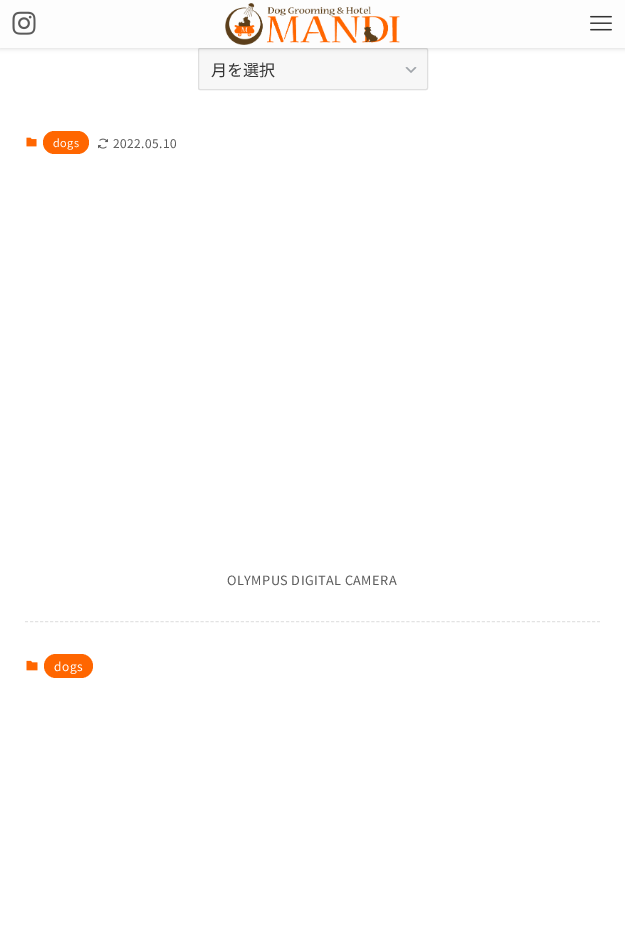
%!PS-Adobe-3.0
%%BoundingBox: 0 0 625 932
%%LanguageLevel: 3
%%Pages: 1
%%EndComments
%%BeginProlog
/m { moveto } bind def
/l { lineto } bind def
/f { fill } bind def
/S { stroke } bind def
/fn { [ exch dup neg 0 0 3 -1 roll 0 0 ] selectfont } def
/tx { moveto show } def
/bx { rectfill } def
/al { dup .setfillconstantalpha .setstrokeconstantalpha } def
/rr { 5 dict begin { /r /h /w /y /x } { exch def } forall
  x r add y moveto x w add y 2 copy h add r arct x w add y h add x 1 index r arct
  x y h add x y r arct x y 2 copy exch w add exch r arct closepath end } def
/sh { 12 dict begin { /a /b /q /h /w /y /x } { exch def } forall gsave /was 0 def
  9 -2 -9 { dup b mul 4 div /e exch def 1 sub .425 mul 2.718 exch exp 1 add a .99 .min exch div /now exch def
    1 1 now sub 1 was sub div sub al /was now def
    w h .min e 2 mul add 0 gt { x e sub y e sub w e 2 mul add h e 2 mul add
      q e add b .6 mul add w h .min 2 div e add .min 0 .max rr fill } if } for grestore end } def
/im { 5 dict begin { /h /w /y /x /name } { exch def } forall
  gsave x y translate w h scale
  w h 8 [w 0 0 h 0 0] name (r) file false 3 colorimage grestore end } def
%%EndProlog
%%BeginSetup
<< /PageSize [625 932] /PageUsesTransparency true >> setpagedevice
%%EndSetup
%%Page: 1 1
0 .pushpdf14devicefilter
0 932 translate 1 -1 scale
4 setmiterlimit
1 setgray
0 0 625 932 bx
0.969 setgray
198 48 230 42 2 rr f
(image3.raw) 405 67 12 6 im
0.875 setgray
198.5 48.5 229 41 1.5 rr S
0 setgray
0 1 625 48 0 2 0.12 sh
0.992 setgray
0 0 625 48 bx
(image0.raw) 12 11 24 24 im
(image1.raw) 225 3 175 42 im
(image2.raw) 590 15 22 16 im
/NotoSansJP-Regular 16 fn
0.2 setgray
(月を選択) 211 76 tx
(image4.raw) 26 137 11 10 im
1 0.4 0 setrgbcolor
43 131 46 23 11.5 rr f
/NotoSansJP-Regular 11 fn
1 setgray
53 147 m 0.4 0 (dogs) ashow
(image5.raw) 98 138 10 11 im
/NotoSansJP-Regular 12 fn
0.361 setgray
113 148 m 0.4 0 (2022.05.10) ashow
/NotoSansJP-Regular 12.75 fn
227 585 m 0.4 0 (OLYMPUS DIGITAL CAMERA) ashow
0.89 setgray
[3 2.02] 0 setdash
25 621.5 m 600 621.5 l S
(image6.raw) 26 660 12 11 im
1 0.4 0 setrgbcolor
44 654 49 24 12 rr f
/NotoSansJP-Regular 12 fn
1 setgray
54 671 m 0.4 0 (dogs) ashow
.poppdf14devicefilter showpage
%%EOF
